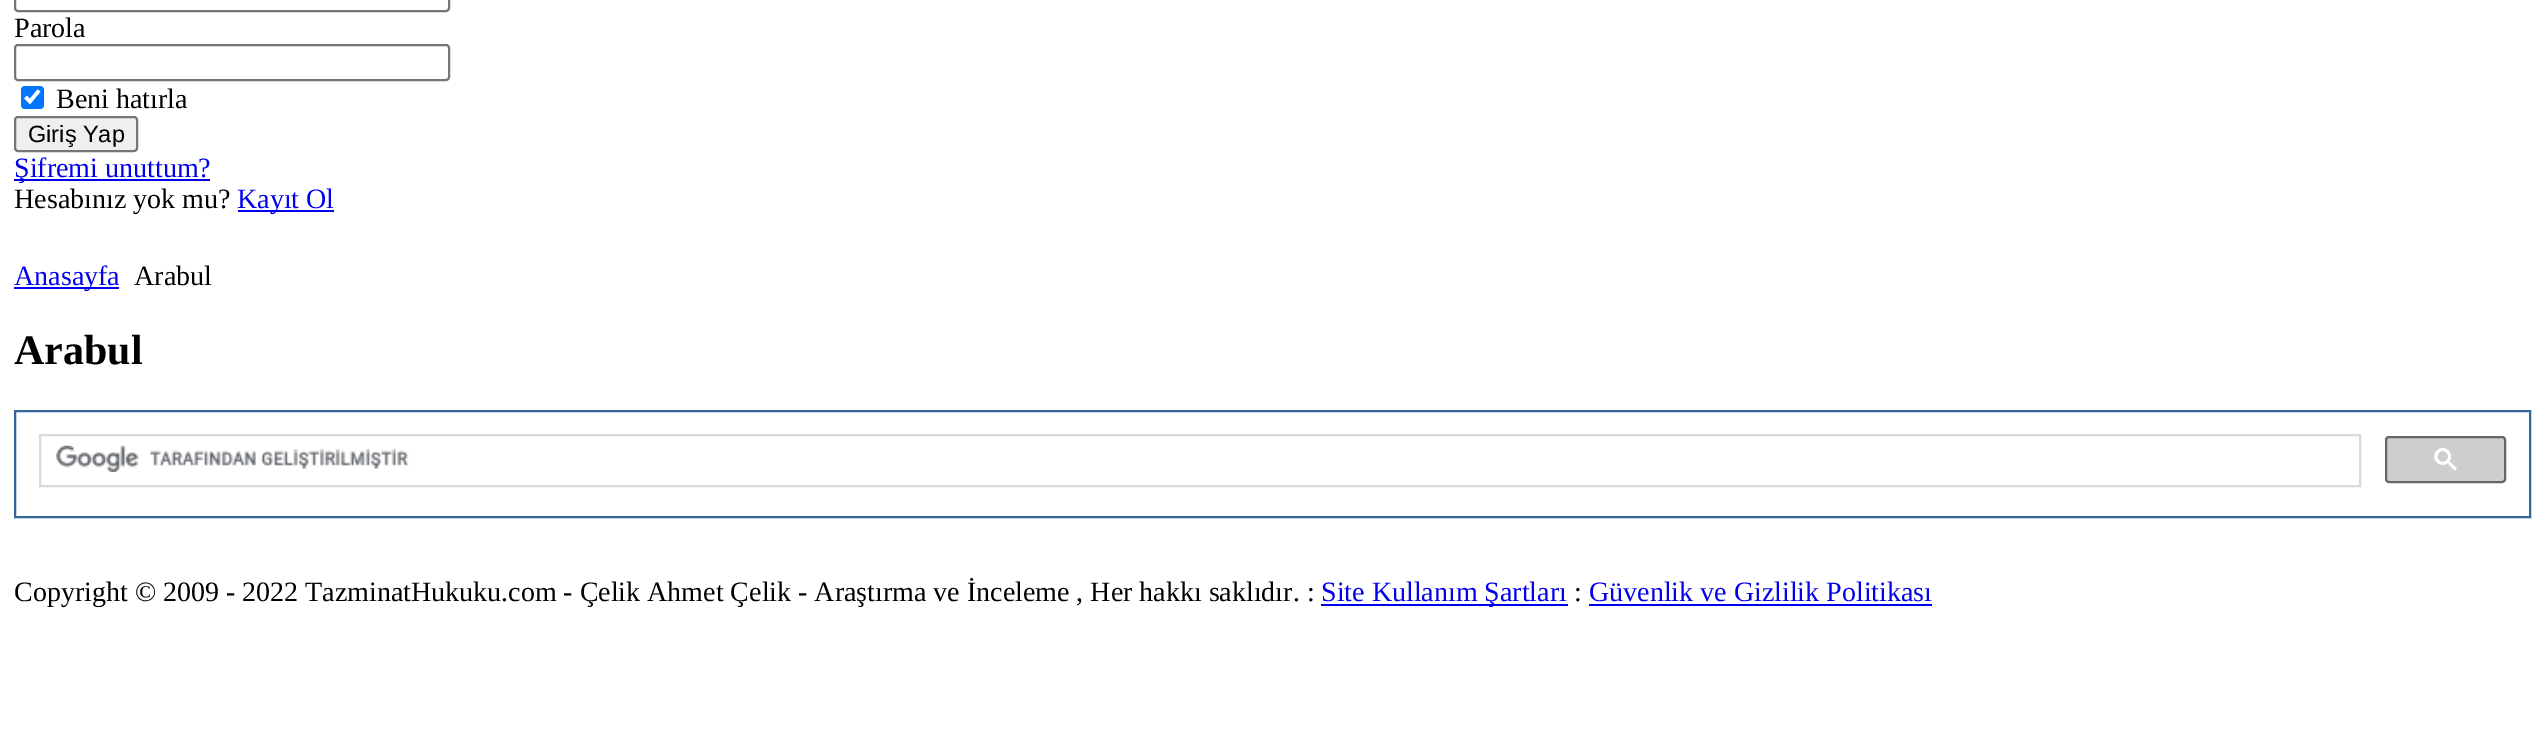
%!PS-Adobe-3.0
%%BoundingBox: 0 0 2544 745
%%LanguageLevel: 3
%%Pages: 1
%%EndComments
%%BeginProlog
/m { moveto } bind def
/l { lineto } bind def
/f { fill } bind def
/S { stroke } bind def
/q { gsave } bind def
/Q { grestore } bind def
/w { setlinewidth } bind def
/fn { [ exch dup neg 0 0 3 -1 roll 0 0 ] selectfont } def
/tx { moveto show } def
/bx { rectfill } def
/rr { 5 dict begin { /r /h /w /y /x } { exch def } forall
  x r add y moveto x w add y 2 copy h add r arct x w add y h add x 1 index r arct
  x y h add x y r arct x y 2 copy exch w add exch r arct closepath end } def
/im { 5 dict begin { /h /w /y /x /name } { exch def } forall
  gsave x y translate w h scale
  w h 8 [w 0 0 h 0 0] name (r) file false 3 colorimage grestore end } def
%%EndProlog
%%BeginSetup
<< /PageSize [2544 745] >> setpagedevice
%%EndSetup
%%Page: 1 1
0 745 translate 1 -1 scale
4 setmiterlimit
1 setgray
0 0 2544 745 bx
0.463 setgray
2 w
15 -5 434 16 3 rr S
/LiberationSerif-Regular 28 fn
0 setgray
(Parola) 14 37 tx
0.463 setgray
15 45 434 35 3 rr S
0 0.459 1 setrgbcolor
21 86 23 23 4 rr f
1 setgray
3.6 w
25.5 97 m 30 101.5 l 39 90.5 l S
0 setgray
(Beni hatırla) 56 108 tx
0.937 setgray
15 117 122 34 3 rr q f Q
0.463 setgray
2 w
S
/LiberationSans-Regular 23.5 fn
0 setgray
(Giriş Yap) 28 142 tx
0 0 0.933 setrgbcolor
14 179 196 2 bx
/LiberationSerif-Regular 28 fn
(Şifremi unuttum?) 14 177 tx
0 setgray
(Hesabınız yok mu?) 14 208 tx
0 0 0.933 setrgbcolor
238 210 96 2 bx
(Kayıt Ol) 237 208 tx
14 287 105 2 bx
(Anasayfa) 14 285 tx
0 setgray
(Arabul) 134 285 tx
/LiberationSerif-Bold 42 fn
(Arabul) 14 364 tx
0.2 0.4 0.6 setrgbcolor
15 411 2515 106 rectstroke
0.851 setgray
40 435 2320 51 rectstroke
(image0.raw) 56 445 353 27 im
0.808 setgray
2386 437 119 45 3 rr q f Q
0.4 setgray
S
(image1.raw) 2434 448 23 23 im
/LiberationSerif-Regular 28 fn
0 setgray
(Copyright © 2009 - 2022 TazminatHukuku.com - Çelik Ahmet Çelik - Araştırma ve İnceleme , Her hakkı saklıdır. :) 14 601 tx
0 0 0.933 setrgbcolor
1321 604 247 2 bx
(Site Kullanım Şartları) 1321 601 tx
0 setgray
(:) 1574 601 tx
0 0 0.933 setrgbcolor
(Güvenlik ve Gizlilik Politikası) 1589 601 tx
1589 604 343 2 bx
showpage
%%EOF
